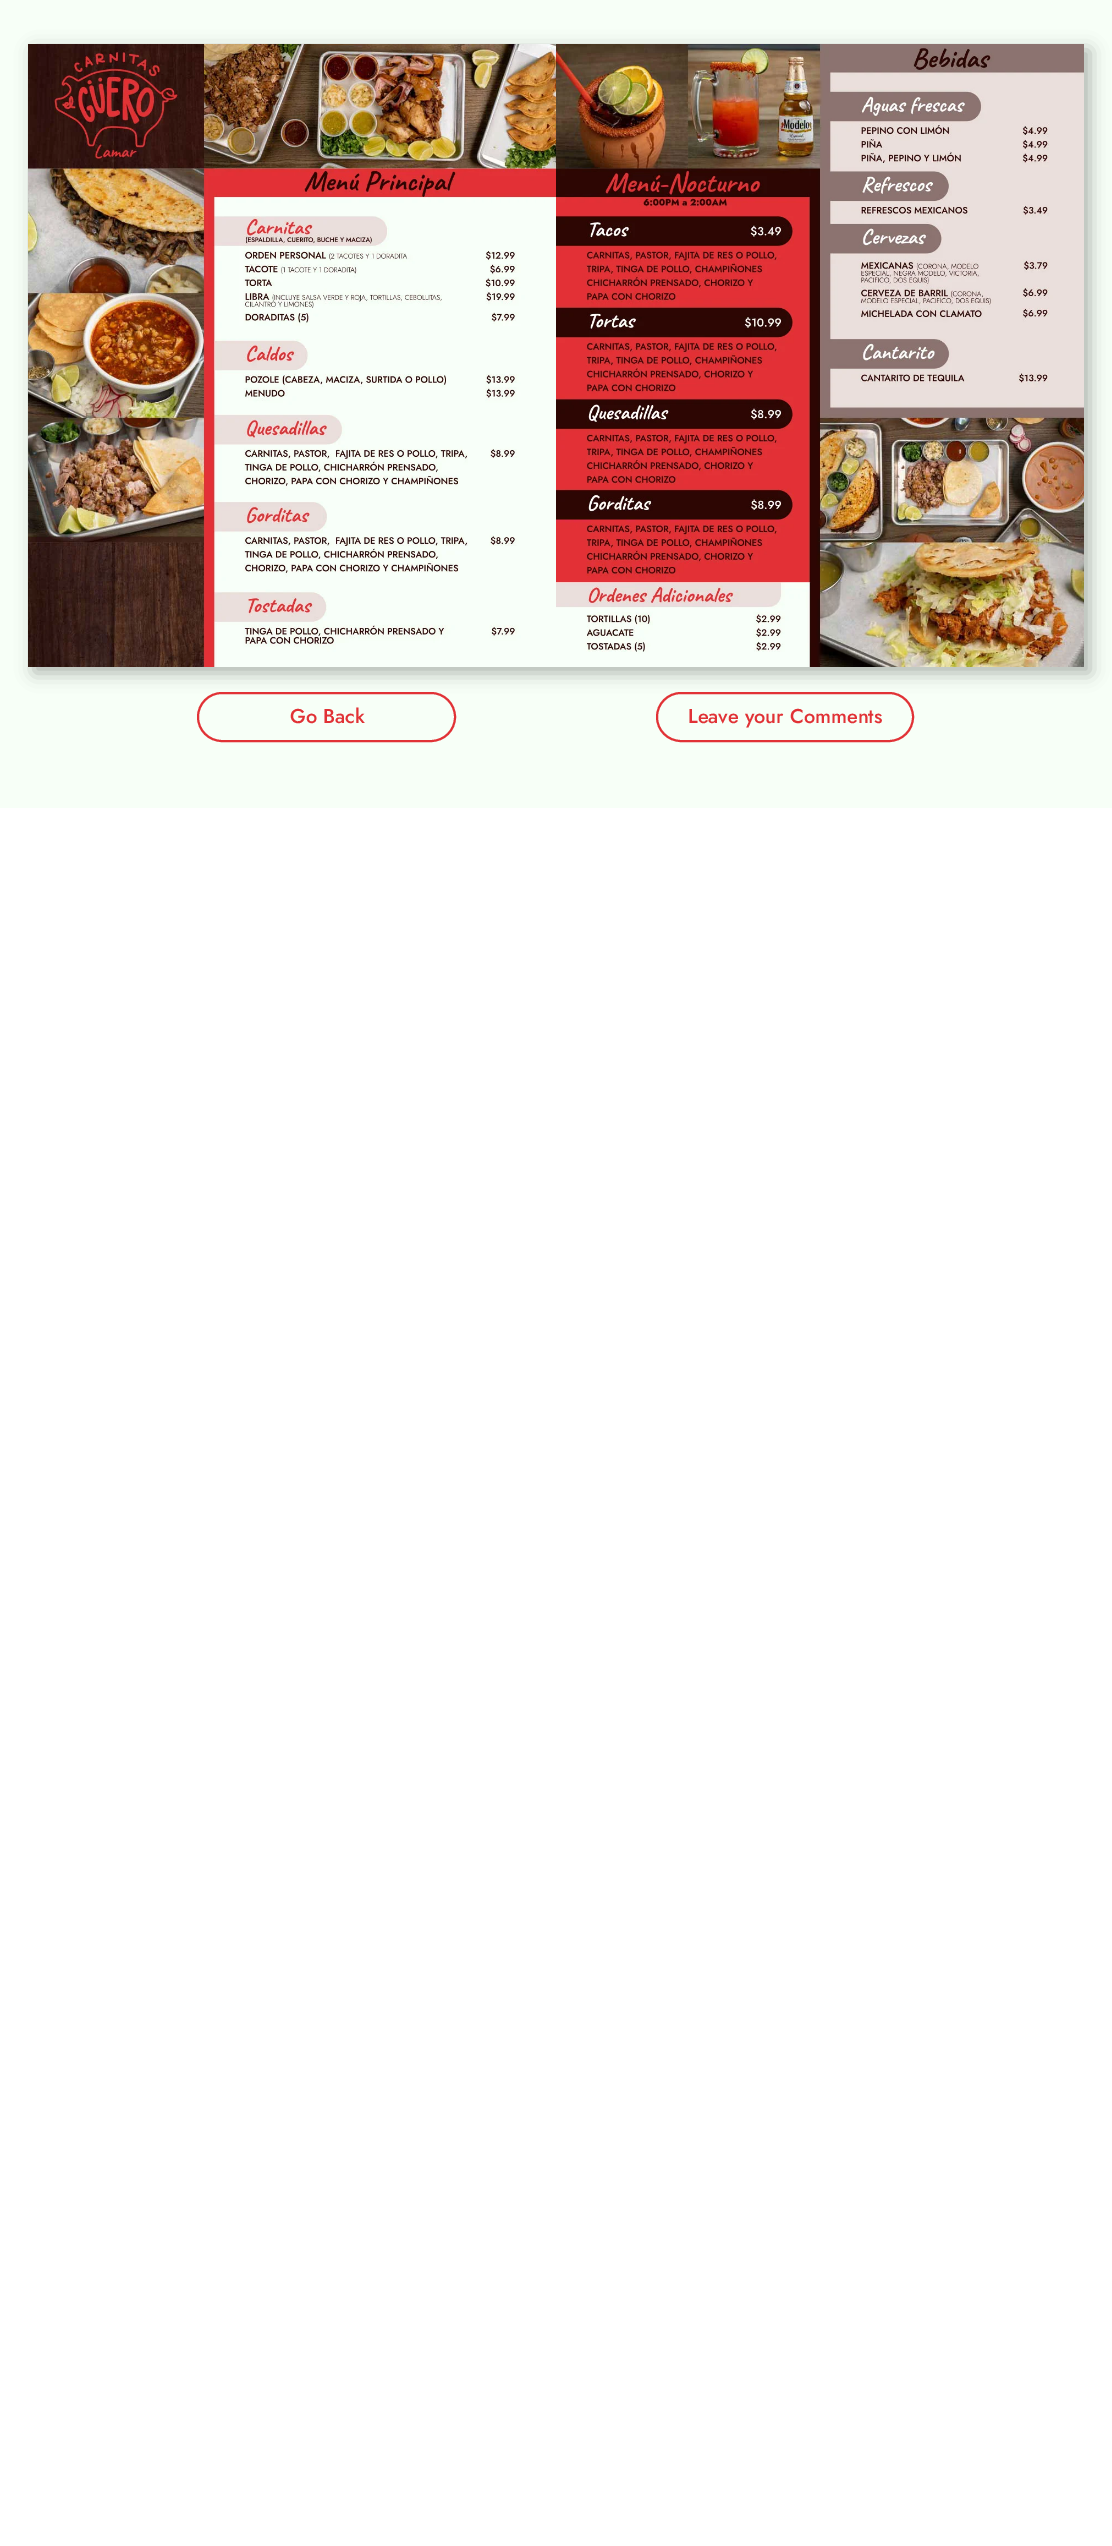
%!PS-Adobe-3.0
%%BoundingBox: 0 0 1112 2546
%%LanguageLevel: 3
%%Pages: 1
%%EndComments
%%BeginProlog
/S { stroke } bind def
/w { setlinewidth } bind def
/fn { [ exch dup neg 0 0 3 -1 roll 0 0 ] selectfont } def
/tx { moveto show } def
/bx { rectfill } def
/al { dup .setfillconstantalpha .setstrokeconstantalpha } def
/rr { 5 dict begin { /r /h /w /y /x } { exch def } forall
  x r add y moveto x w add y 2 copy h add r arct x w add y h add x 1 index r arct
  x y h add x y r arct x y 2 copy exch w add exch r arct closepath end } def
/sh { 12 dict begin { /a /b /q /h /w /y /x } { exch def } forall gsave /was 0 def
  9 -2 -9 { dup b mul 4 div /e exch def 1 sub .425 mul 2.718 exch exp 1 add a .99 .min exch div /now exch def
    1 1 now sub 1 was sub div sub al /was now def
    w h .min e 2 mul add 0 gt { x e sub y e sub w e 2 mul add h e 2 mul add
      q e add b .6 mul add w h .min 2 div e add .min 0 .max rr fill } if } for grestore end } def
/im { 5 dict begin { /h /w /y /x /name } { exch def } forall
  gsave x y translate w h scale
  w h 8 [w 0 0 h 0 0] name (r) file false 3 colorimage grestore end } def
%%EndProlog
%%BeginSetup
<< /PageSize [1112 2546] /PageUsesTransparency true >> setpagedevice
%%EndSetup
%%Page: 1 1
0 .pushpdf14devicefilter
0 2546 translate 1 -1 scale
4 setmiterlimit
1 setgray
0 0 1112 2546 bx
0.969 1 0.969 setrgbcolor
0 0 1112 808 bx
0 setgray
34 50 1056 623 0 9 0.3 sh
(image0.raw) 28 44 528 623 im
(image1.raw) 556 44 528 623 im
0.882 0.196 0.212 setrgbcolor
2 w
198 693 257 48 24 rr S
/Jost-Medium 20 fn
(Go Back) 290 723 tx
657 693 256 48 24 rr S
(Leave your Comments) 688 723 tx
.poppdf14devicefilter showpage
%%EOF
